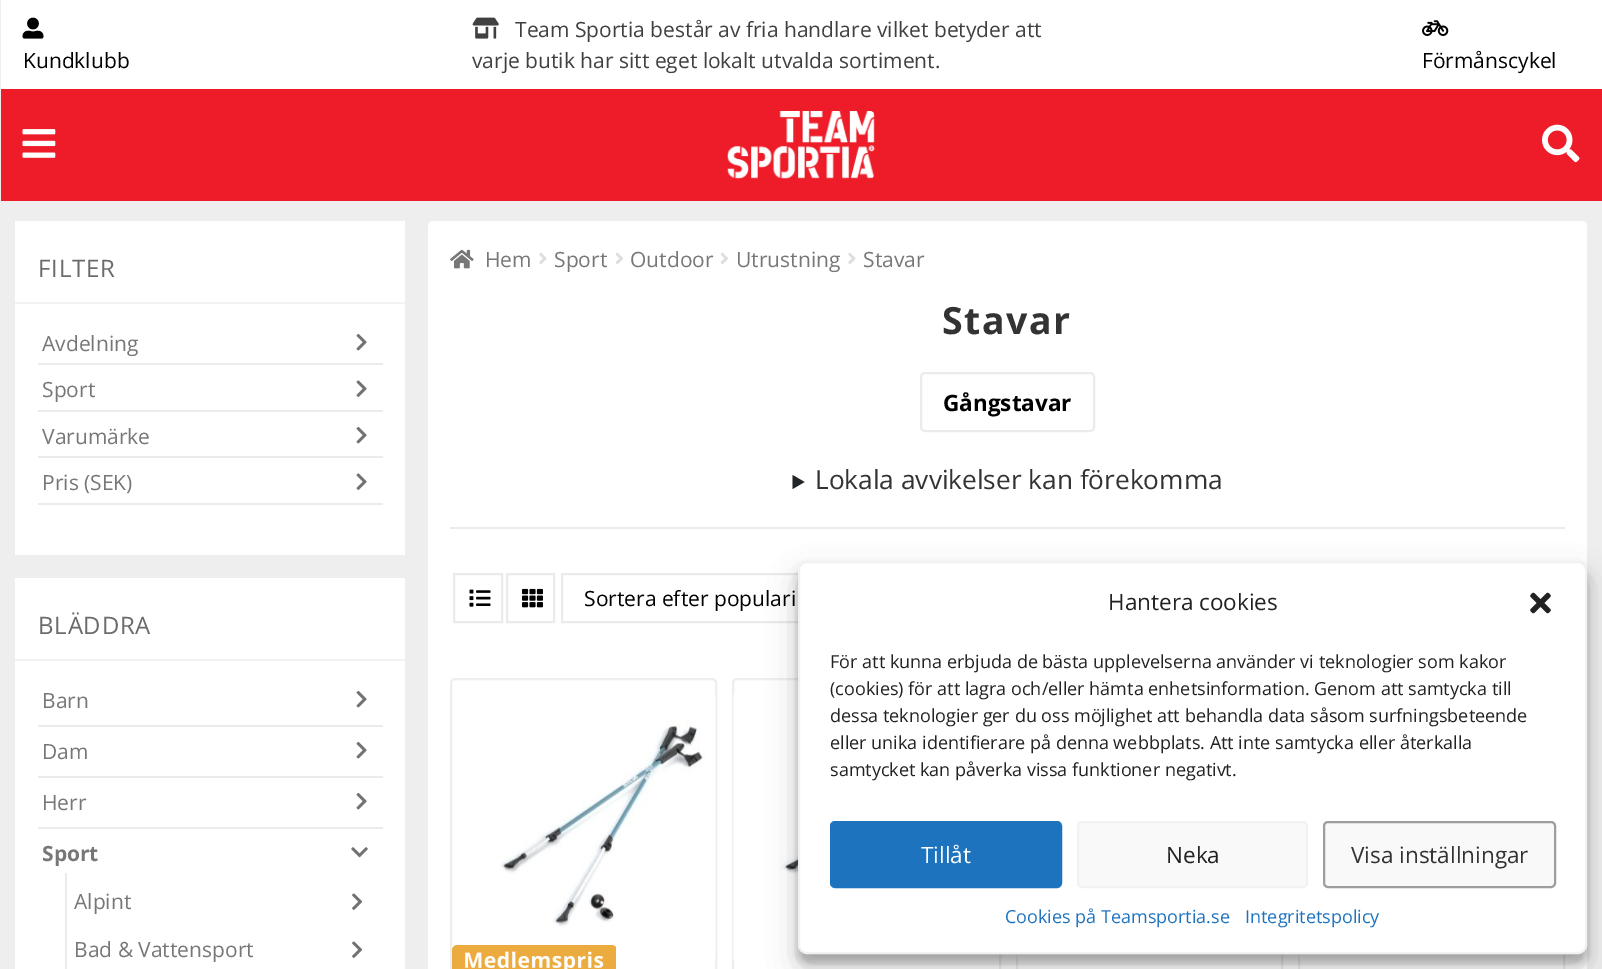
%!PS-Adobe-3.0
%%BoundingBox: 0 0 1602 969
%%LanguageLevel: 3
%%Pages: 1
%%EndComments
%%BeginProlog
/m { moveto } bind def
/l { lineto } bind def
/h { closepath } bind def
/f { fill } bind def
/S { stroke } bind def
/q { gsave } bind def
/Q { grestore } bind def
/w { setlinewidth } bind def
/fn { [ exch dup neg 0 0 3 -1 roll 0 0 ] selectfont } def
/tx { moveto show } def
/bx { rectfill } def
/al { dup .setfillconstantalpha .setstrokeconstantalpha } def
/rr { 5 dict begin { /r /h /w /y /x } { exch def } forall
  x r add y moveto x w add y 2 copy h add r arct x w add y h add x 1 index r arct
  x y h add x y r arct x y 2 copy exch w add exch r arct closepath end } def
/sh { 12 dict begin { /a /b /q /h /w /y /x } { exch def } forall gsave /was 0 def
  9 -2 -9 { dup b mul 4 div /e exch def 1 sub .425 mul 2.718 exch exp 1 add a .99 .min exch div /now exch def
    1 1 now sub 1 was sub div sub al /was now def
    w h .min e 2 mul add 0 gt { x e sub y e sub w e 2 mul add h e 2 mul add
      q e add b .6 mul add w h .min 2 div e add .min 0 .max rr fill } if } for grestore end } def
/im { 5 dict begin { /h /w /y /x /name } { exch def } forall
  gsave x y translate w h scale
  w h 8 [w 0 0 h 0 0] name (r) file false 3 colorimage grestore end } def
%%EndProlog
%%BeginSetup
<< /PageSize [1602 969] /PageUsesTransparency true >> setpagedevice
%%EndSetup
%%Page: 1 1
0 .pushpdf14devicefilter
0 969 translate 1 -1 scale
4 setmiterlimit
0.933 setgray
0 0 1602 969 bx
0.929 0.11 0.157 setrgbcolor
1 89 1601 112 bx
1 setgray
1 0 1601 89 bx
(image0.raw) 472 17 27 22 im
/OpenSans-Regular 21 fn
0.251 setgray
(Team Sportia består av fria handlare vilket betyder att) 515 37 tx
(varje butik har sitt eget lokalt utvalda sortiment.) 472 68 tx
0.4 al
1 setgray
472 23 1 1 bx
1 al
(image1.raw) 22 17 22 22 im
0 setgray
(Kundklubb) 23 68 tx
(image2.raw) 1422 20 27 16 im
(Förmånscykel) 1422 68 tx
(image3.raw) 22 129 34 29 im
(image4.raw) 727 111 148 68 im
(image5.raw) 1542 124 38 39 im
1 setgray
15 221 390 334 bx
0.949 setgray
15 302 390 2 bx
/OpenSans-Regular 24 fn
0.42 setgray
38 277 m 0.75 0 (FILTER) ashow
0.922 setgray
38 363 345 2 bx
/OpenSans-Regular 21 fn
0.467 setgray
(Avdelning) 42 351 tx
(image6.raw) 356 333 11 18 im
0.922 setgray
38 410 345 2 bx
0.467 setgray
(Sport) 42 397 tx
(image7.raw) 356 380 11 17 im
0.922 setgray
38 456 345 2 bx
0.467 setgray
(Varumärke) 42 444 tx
(image6.raw) 356 426 11 18 im
0.922 setgray
38 503 345 2 bx
0.467 setgray
(Pris \(SEK\)) 42 490 tx
(image7.raw) 356 473 11 17 im
1 setgray
15 578 390 391 bx
0.949 setgray
15 659 390 2 bx
/OpenSans-Regular 24 fn
0.42 setgray
38 634 m 0.75 0 (BLÄDDRA) ashow
0.922 setgray
38 725 345 2 bx
/OpenSans-Regular 21 fn
0.467 setgray
(Barn) 42 708 tx
(image6.raw) 356 690 11 18 im
0.922 setgray
38 776 345 2 bx
0.467 setgray
(Dam) 42 759 tx
(image6.raw) 356 741 11 18 im
0.922 setgray
38 827 345 2 bx
0.467 setgray
(Herr) 42 810 tx
(image6.raw) 356 792 11 18 im
/OpenSans-Bold 21 fn
(Sport) 42 861 tx
(image8.raw) 351 847 17 11 im
0.922 setgray
65 873 2 96 bx
/OpenSans-Regular 21 fn
0.467 setgray
(Alpint) 74 909 tx
(image9.raw) 352 893 11 17 im
(Bad & Vattensport) 74 957 tx
(image9.raw) 352 941 11 17 im
1 setgray
428 221 1159 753 5 rr f
(image10.raw) 450 249 24 20 im
0.467 setgray
(Hem) 485 267 tx
(image11.raw) 539 252 8 12 im
(Sport) 554 267 tx
(image12.raw) 615 252 8 12 im
(Outdoor) 630 267 tx
(image12.raw) 720 252 8 12 im
(Utrustning) 736 267 tx
(image11.raw) 848 252 8 12 im
(Stavar) 863 267 tx
0.922 setgray
450 527 1115 2 bx
/OpenSans-Bold 37.5 fn
0.2 setgray
942 334 m 1.5 0 (Stavar) ashow
0.922 setgray
2 w
921 373 173 58 4 rr S
/OpenSans-Bold 22.5 fn
0 setgray
(Gångstavar) 943 411 tx
0.129 0.145 0.161 setrgbcolor
792.5 475 m 804.5 482 l 792.5 489 l h f
/OpenSans-Regular 26.25 fn
0.2 setgray
(Lokala avvikelser kan förekomma) 815 489 tx
0.922 setgray
454 574 48 48 rectstroke
(image13.raw) 469 589 22 18 im
507 574 47 48 rectstroke
(image14.raw) 522 588 21 20 im
562 574 354 48 rectstroke
/OpenSans-Regular 21 fn
0 setgray
(Sortera efter populari) 584 606 tx
0.933 setgray
451 679 265 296 4 rr S
(image15.raw) 500 694 216 265 im
(image16.raw) 452 945 164 24 im
733 679 267 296 4 rr S
(image17.raw) 733 694 255 266 im
1017 679 265 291 rectstroke
(image18.raw) 1016 954 266 5 im
1299 679 265 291 rectstroke
(image19.raw) 1298 954 255 5 im
0 setgray
798 570 789 393 9 4.5 0.23 sh
798 576 789 393 9 15 0.19 sh
1 setgray
799 562 787 391 8 rr q f Q
0.949 setgray
S
/OpenSans-Regular 22.5 fn
0.133 setgray
(Hantera cookies) 1108 610 tx
(image20.raw) 1530 592 21 22 im
/OpenSans-Regular 18 fn
(För att kunna erbjuda de bästa upplevelserna använder vi teknologier som kakor) 830 668 tx
(\(cookies\) för att lagra och/eller hämta enhetsinformation. Genom att samtycka till) 830 695 tx
(dessa teknologier ger du oss möjlighet att behandla data såsom surfningsbeteende) 830 722 tx
(eller unika identifierare på denna webbplats. Att inte samtycka eller återkalla) 830 749 tx
(samtycket kan påverka vissa funktioner negativt.) 830 776 tx
0.118 0.451 0.745 setrgbcolor
831 822 230 65 4 rr q f Q
S
/OpenSans-Regular 22.5 fn
1 setgray
(Tillåt) 921 863 tx
0.976 setgray
1078 822 229 65 4 rr q f Q
0.949 setgray
S
0.133 setgray
(Neka) 1166 863 tx
0.976 setgray
1324 822 231 65 4 rr q f Q
0.62 setgray
S
0.2 setgray
(Visa inställningar) 1351 863 tx
/OpenSans-Regular 18 fn
0.118 0.451 0.745 setrgbcolor
(Cookies på Teamsportia.se) 1005 923 tx
(Integritetspolicy) 1245 923 tx
.poppdf14devicefilter showpage
%%EOF
